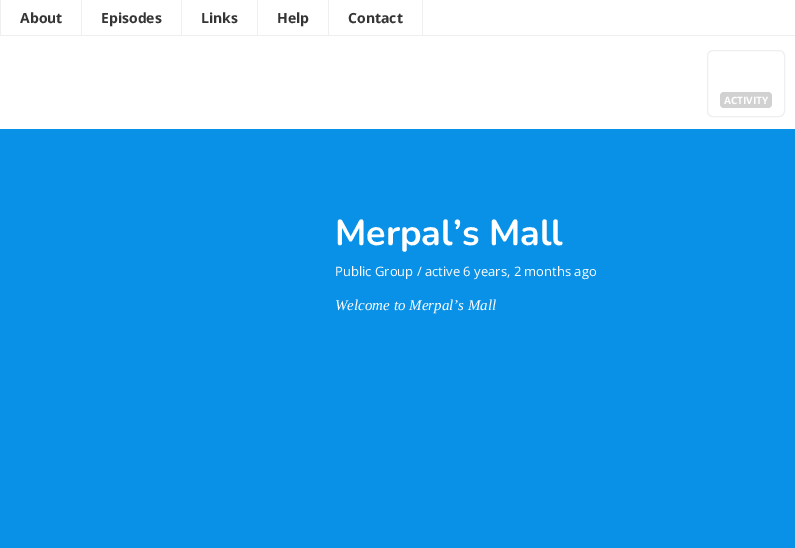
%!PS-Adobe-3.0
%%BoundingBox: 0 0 795 548
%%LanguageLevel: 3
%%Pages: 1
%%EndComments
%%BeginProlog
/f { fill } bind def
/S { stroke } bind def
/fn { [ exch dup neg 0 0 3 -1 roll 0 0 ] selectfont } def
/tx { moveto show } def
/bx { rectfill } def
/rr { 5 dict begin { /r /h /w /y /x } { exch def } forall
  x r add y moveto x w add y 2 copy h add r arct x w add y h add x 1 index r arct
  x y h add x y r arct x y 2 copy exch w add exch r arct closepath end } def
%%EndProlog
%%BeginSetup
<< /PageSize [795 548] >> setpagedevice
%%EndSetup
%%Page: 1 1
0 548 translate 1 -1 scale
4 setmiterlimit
1 setgray
0 0 795 548 bx
0.937 setgray
422 0 1 35 bx
0 0 1 35 bx
/OpenSans-Bold 14 fn
0.208 setgray
(About) 20 23 tx
0.937 setgray
81 0 1 35 bx
0.208 setgray
(Episodes) 101 23 tx
0.937 setgray
181 0 1 35 bx
0.208 setgray
(Links) 201 23 tx
0.937 setgray
257 0 1 35 bx
0.208 setgray
(Help) 277 23 tx
0.937 setgray
328 0 1 35 bx
0.208 setgray
(Contact) 348 23 tx
0.937 setgray
0 35 795 1 bx
707.5 50.5 77 66 5.5 rr S
0.82 setgray
720 92 52 16 4 rr f
/OpenSans-Bold 10 fn
1 setgray
(ACTIVITY) 724 104 tx
0.031 0.569 0.902 setrgbcolor
0 129 795 419 bx
/Nunito-Bold 36 fn
1 setgray
(Merpal’s Mall) 335 245 tx
/OpenSans-Regular 13 fn
(Public Group / active 6 years, 2 months ago) 335 276 tx
/LiberationSerif-Italic 15 fn
(Welcome to Merpal’s Mall) 335 310 tx
showpage
%%EOF
